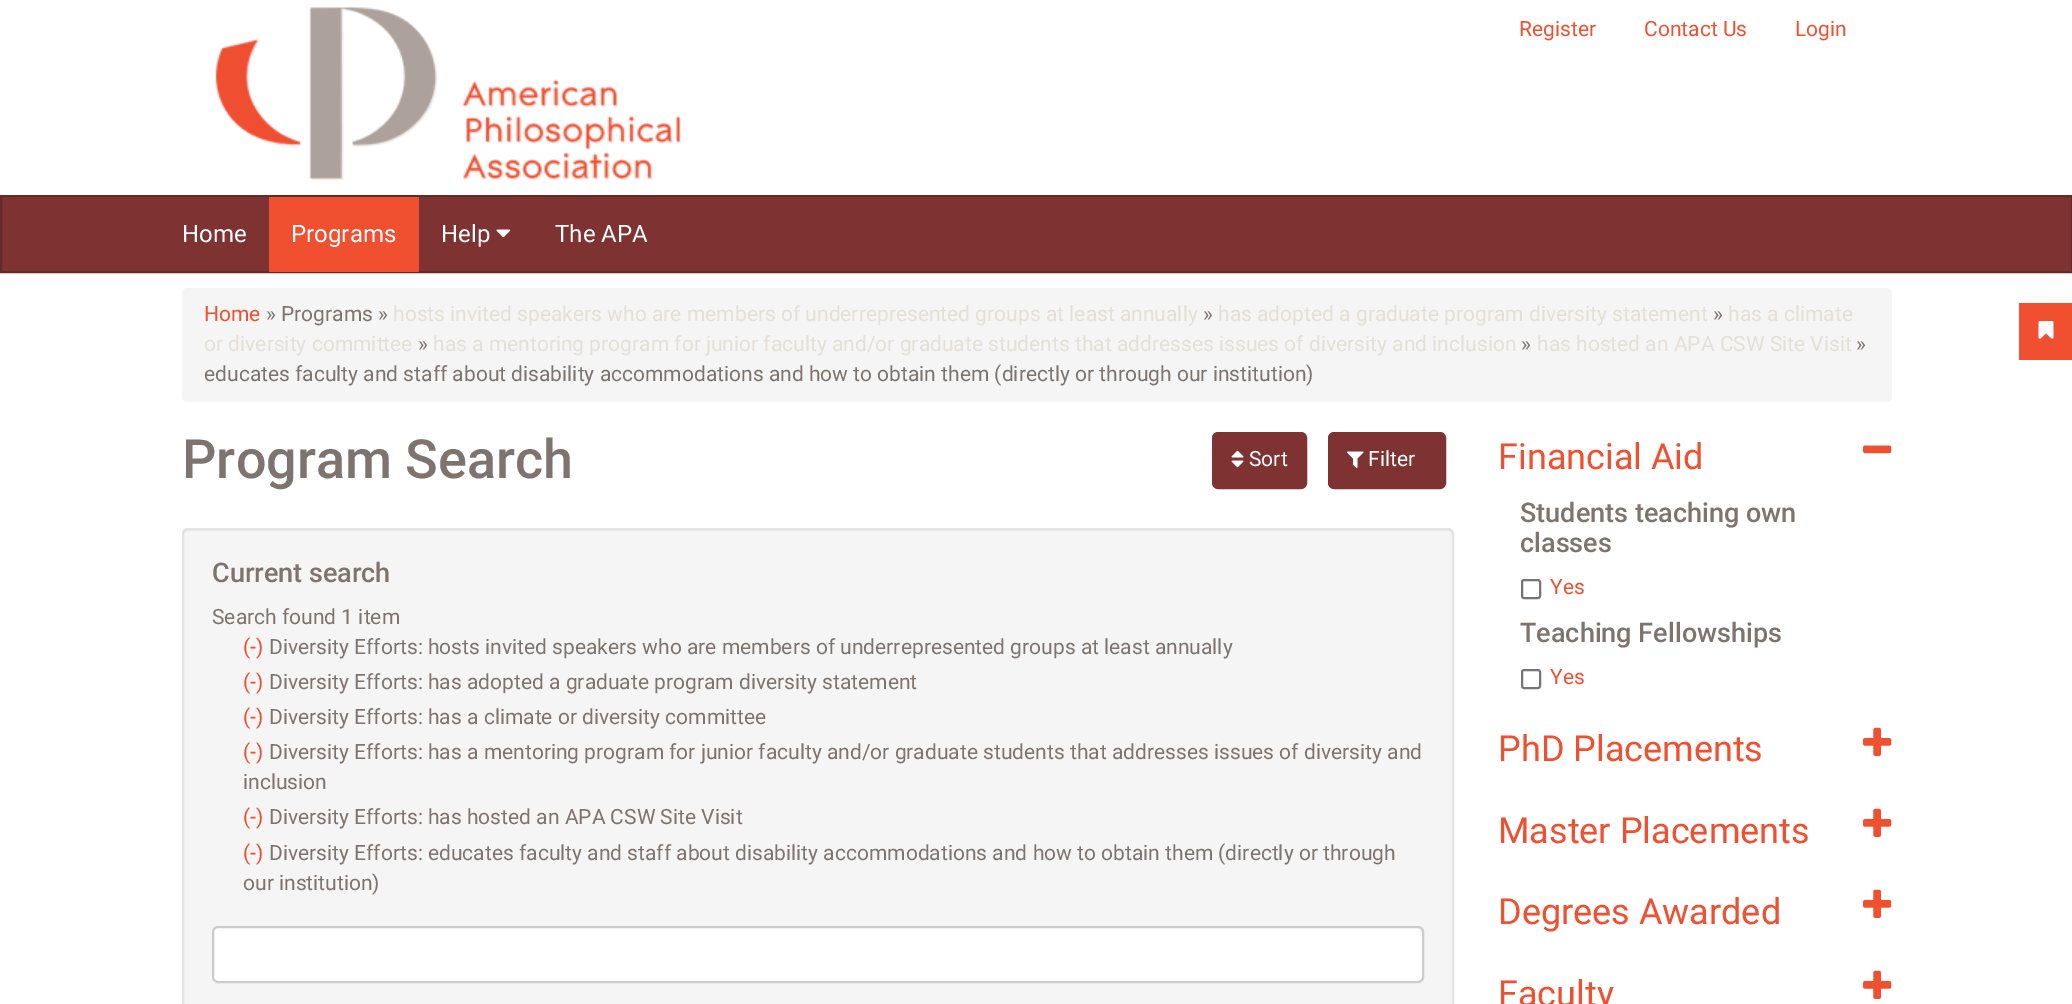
%!PS-Adobe-3.0
%%BoundingBox: 0 0 2072 1004
%%LanguageLevel: 3
%%Pages: 1
%%EndComments
%%BeginProlog
/m { moveto } bind def
/l { lineto } bind def
/c { curveto } bind def
/h { closepath } bind def
/f { fill } bind def
/S { stroke } bind def
/q { gsave } bind def
/Q { grestore } bind def
/w { setlinewidth } bind def
/fn { [ exch dup neg 0 0 3 -1 roll 0 0 ] selectfont } def
/tx { moveto show } def
/bx { rectfill } def
/rr { 5 dict begin { /r /h /w /y /x } { exch def } forall
  x r add y moveto x w add y 2 copy h add r arct x w add y h add x 1 index r arct
  x y h add x y r arct x y 2 copy exch w add exch r arct closepath end } def
/im { 5 dict begin { /h /w /y /x /name } { exch def } forall
  gsave x y translate w h scale
  w h 8 [w 0 0 h 0 0] name (r) file false 3 colorimage grestore end } def
%%EndProlog
%%BeginSetup
<< /PageSize [2072 1004] >> setpagedevice
%%EndSetup
%%Page: 1 1
0 1004 translate 1 -1 scale
4 setmiterlimit
1 setgray
0 0 2072 1004 bx
(image0.raw) 215 7 467 174 im
/Roboto-Regular 21 fn
0.941 0.314 0.188 setrgbcolor
(Register) 1519 36 tx
(Contact Us) 1644 36 tx
(Login) 1795 36 tx
0.494 0.196 0.196 setrgbcolor
1 196 m 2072 196 l 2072 272 l 1 272 l h q f Q
0.4 0.161 0.161 setrgbcolor
2 w
S
/Roboto-Regular 24 fn
1 setgray
(Home) 182 242 tx
0.941 0.314 0.188 setrgbcolor
269 197 150 75 bx
1 setgray
(Programs) 291 242 tx
(Help) 441 242 tx
(image1.raw) 496 229 15 9 im
(The APA) 555 242 tx
0.961 setgray
182 288 1710 114 6 rr f
/Roboto-Regular 21 fn
0.941 0.314 0.188 setrgbcolor
(Home) 204 321 tx
0.494 0.455 0.435 setrgbcolor
(» Programs ») 266 321 tx
0.894 0.878 0.847 setrgbcolor
(hosts invited speakers who are members of underrepresented groups at least annually) 393 321 tx
0.494 0.455 0.435 setrgbcolor
(») 1203 321 tx
0.894 0.878 0.847 setrgbcolor
(has adopted a graduate program diversity statement) 1218 321 tx
0.494 0.455 0.435 setrgbcolor
(») 1713 321 tx
0.894 0.878 0.847 setrgbcolor
(has a climate) 1728 321 tx
(or diversity committee) 204 351 tx
0.494 0.455 0.435 setrgbcolor
(») 418 351 tx
0.894 0.878 0.847 setrgbcolor
(has a mentoring program for junior faculty and/or graduate students that addresses issues of diversity and inclusion) 433 351 tx
0.494 0.455 0.435 setrgbcolor
(») 1521 351 tx
0.894 0.878 0.847 setrgbcolor
(has hosted an APA CSW Site Visit) 1537 351 tx
0.494 0.455 0.435 setrgbcolor
(») 1856 351 tx
(educates faculty and staff about disability accommodations and how to obtain them \(directly or through our institution\)) 204 381 tx
0.941 0.314 0.188 setrgbcolor
2019 303 53 57 bx
(image2.raw) 2038 321 16 18 im
/Roboto-Medium 54 fn
0.494 0.455 0.435 setrgbcolor
(Program Search) 182 478 tx
0.494 0.196 0.196 setrgbcolor
1213 433 93 55 5 rr q f Q
S
(image3.raw) 1231 450 13 18 im
/Roboto-Regular 21 fn
1 setgray
(Sort) 1249 466 tx
0.494 0.196 0.196 setrgbcolor
1329 433 116 55 5 rr q f Q
S
(image4.raw) 1347 451 17 17 im
1 setgray
(Filter) 1368 466 tx
0.961 setgray
182 528 1272 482 6 rr f
0.914 setgray
188 531 m 1448 531 l 1450 531 1452 533 1452 536 c 1452 533 1450 530 1447 530 c 188 530 l 185 530 183 533 183 536 c 183 533 185 531 188 531 c h f
0.89 setgray
183 529 1270 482 5 rr S
/Roboto-Medium 27 fn
0.494 0.455 0.435 setrgbcolor
(Current search) 212 582 tx
/Roboto-Regular 21 fn
(Search found 1 item) 212 624 tx
0.941 0.314 0.188 setrgbcolor
(\(-\)) 243 654 tx
0.494 0.455 0.435 setrgbcolor
(Diversity Efforts: hosts invited speakers who are members of underrepresented groups at least annually) 269 654 tx
0.941 0.314 0.188 setrgbcolor
(\(-\)) 243 689 tx
0.494 0.455 0.435 setrgbcolor
(Diversity Efforts: has adopted a graduate program diversity statement) 269 689 tx
0.941 0.314 0.188 setrgbcolor
(\(-\)) 243 724 tx
0.494 0.455 0.435 setrgbcolor
(Diversity Efforts: has a climate or diversity committee) 269 724 tx
0.941 0.314 0.188 setrgbcolor
(\(-\)) 243 759 tx
0.494 0.455 0.435 setrgbcolor
(Diversity Efforts: has a mentoring program for junior faculty and/or graduate students that addresses issues of diversity and) 269 759 tx
(inclusion) 243 789 tx
0.941 0.314 0.188 setrgbcolor
(\(-\)) 243 824 tx
0.494 0.455 0.435 setrgbcolor
(Diversity Efforts: has hosted an APA CSW Site Visit) 269 824 tx
0.941 0.314 0.188 setrgbcolor
(\(-\)) 243 860 tx
0.494 0.455 0.435 setrgbcolor
(Diversity Efforts: educates faculty and staff about disability accommodations and how to obtain them \(directly or through) 269 860 tx
(our institution\)) 243 890 tx
1 setgray
212 926 1212 57 6 rr f
0.925 setgray
218 928 m 1418 928 l 1420 928 1422 931 1422 933 c 1422 930 1420 927 1417 927 c 218 927 l 215 927 213 930 213 933 c 213 931 215 928 218 928 c h f
0.8 setgray
213 927 1210 55 5 rr S
/Roboto-Regular 36 fn
0.941 0.314 0.188 setrgbcolor
(Financial Aid) 1498 469 tx
(image5.raw) 1863 445 29 9 im
/Roboto-Medium 27 fn
0.494 0.455 0.435 setrgbcolor
(Students teaching own) 1520 522 tx
(classes) 1520 552 tx
0.463 setgray
1522 580 18 18 2 rr S
/Roboto-Regular 21 fn
0.941 0.314 0.188 setrgbcolor
(Yes) 1550 594 tx
/Roboto-Medium 27 fn
0.494 0.455 0.435 setrgbcolor
(Teaching Fellowships) 1520 642 tx
0.463 setgray
1522 670 18 18 2 rr S
/Roboto-Regular 21 fn
0.941 0.314 0.188 setrgbcolor
(Yes) 1550 684 tx
/Roboto-Regular 36 fn
(PhD Placements) 1498 761 tx
(image6.raw) 1863 727 29 29 im
(Master Placements) 1498 843 tx
(image6.raw) 1863 808 29 29 im
(Degrees Awarded) 1498 924 tx
(image6.raw) 1863 889 29 29 im
(Faculty) 1498 1006 tx
(image6.raw) 1863 970 29 29 im
showpage
%%EOF
